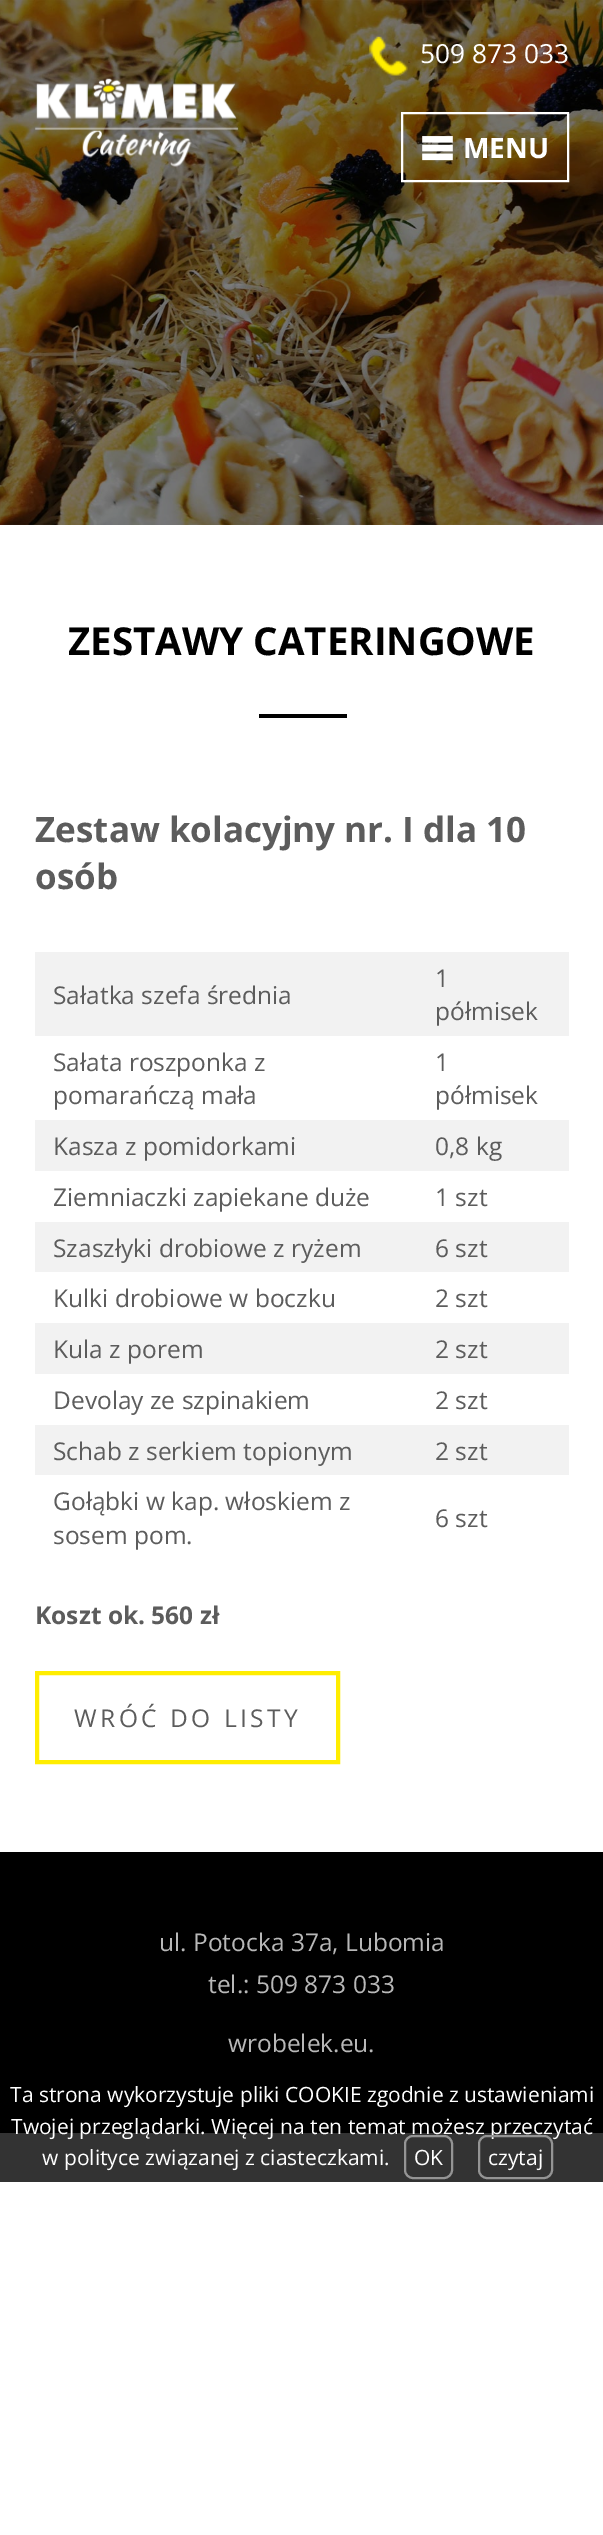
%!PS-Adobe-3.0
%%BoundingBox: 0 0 603 2535
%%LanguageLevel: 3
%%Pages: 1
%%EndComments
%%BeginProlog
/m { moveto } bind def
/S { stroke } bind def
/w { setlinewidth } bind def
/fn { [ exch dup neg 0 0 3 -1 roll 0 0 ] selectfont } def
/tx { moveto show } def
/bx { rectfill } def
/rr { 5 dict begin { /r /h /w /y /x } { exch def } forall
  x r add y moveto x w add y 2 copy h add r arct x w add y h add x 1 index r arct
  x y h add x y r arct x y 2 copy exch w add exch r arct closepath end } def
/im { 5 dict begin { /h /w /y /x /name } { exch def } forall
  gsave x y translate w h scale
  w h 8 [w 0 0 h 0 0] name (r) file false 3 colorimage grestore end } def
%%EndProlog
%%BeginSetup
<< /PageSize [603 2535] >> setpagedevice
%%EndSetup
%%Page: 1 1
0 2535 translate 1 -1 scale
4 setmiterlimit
1 setgray
0 0 603 2535 bx
0.2 setgray
0 2133 603 49 bx
(image0.raw) 0 0 603 525 im
(image1.raw) 369 36 39 40 im
/OpenSans-Regular 26.25 fn
1 setgray
(509 873 033) 420 63 tx
(image2.raw) 35 78 203 89 im
2 w
402 113 166 68 rectstroke
(image3.raw) 422 136 31 25 im
/OpenSans-Bold 28 fn
(MENU) 463 158 tx
/OpenSans-Bold 38.5 fn
0 setgray
(ZESTAWY CATERINGOWE) 68 655 tx
259 714 88 4 bx
/OpenSans-Bold 35 fn
0.361 setgray
(Zestaw kolacyjny nr. I dla 10) 35 842 tx
(osób) 35 889 tx
0.949 setgray
35 952 534 84 bx
/OpenSans-Regular 24.5 fn
0.361 setgray
(Sałatka szefa średnia) 53 1004 tx
(1) 435 987 tx
(półmisek) 435 1020 tx
(Sałata roszponka z) 53 1071 tx
(pomarańczą mała) 53 1104 tx
(1) 435 1071 tx
(półmisek) 435 1104 tx
0.949 setgray
35 1120 534 51 bx
0.361 setgray
(Kasza z pomidorkami) 53 1155 tx
(0,8 kg) 435 1155 tx
(Ziemniaczki zapiekane duże) 53 1206 tx
(1 szt) 435 1206 tx
0.949 setgray
35 1222 534 50 bx
0.361 setgray
(Szaszłyki drobiowe z ryżem) 53 1257 tx
(6 szt) 435 1257 tx
(Kulki drobiowe w boczku) 53 1307 tx
(2 szt) 435 1307 tx
0.949 setgray
35 1323 534 51 bx
0.361 setgray
(Kula z porem) 53 1358 tx
(2 szt) 435 1358 tx
(Devolay ze szpinakiem) 53 1409 tx
(2 szt) 435 1409 tx
0.949 setgray
35 1425 534 50 bx
0.361 setgray
(Schab z serkiem topionym) 53 1460 tx
(2 szt) 435 1460 tx
(Gołąbki w kap. włoskiem z) 53 1510 tx
(sosem pom.) 53 1544 tx
(6 szt) 435 1527 tx
/OpenSans-Bold 24.5 fn
(Koszt ok. 560 zł) 35 1624 tx
1 0.929 0 setrgbcolor
4 w
37 1673 301 89 rectstroke
/OpenSans-Regular 24.5 fn
0.361 setgray
74 1727 m 3.5 0 (WRÓĆ DO LISTY) ashow
0 setgray
0 1852 603 281 bx
0.722 setgray
(ul. Potocka 37a, Lubomia) 159 1951 tx
(tel.: 509 873 033) 208 1993 tx
(wrobelek.eu.) 228 2052 tx
/OpenSans-Regular 21 fn
1 setgray
(Ta strona wykorzystuje pliki COOKIE zgodnie z ustawieniami) 10 2102 tx
(Twojej przeglądarki. Więcej na ten temat możesz przeczytać) 11 2134 tx
(w polityce związanej z ciasteczkami.) 42 2165 tx
0.58 setgray
2 w
405 2136 47 42 8 rr S
1 setgray
(OK) 414 2165 tx
0.58 setgray
479 2136 73 42 8 rr S
1 setgray
(czytaj) 488 2165 tx
showpage
%%EOF
